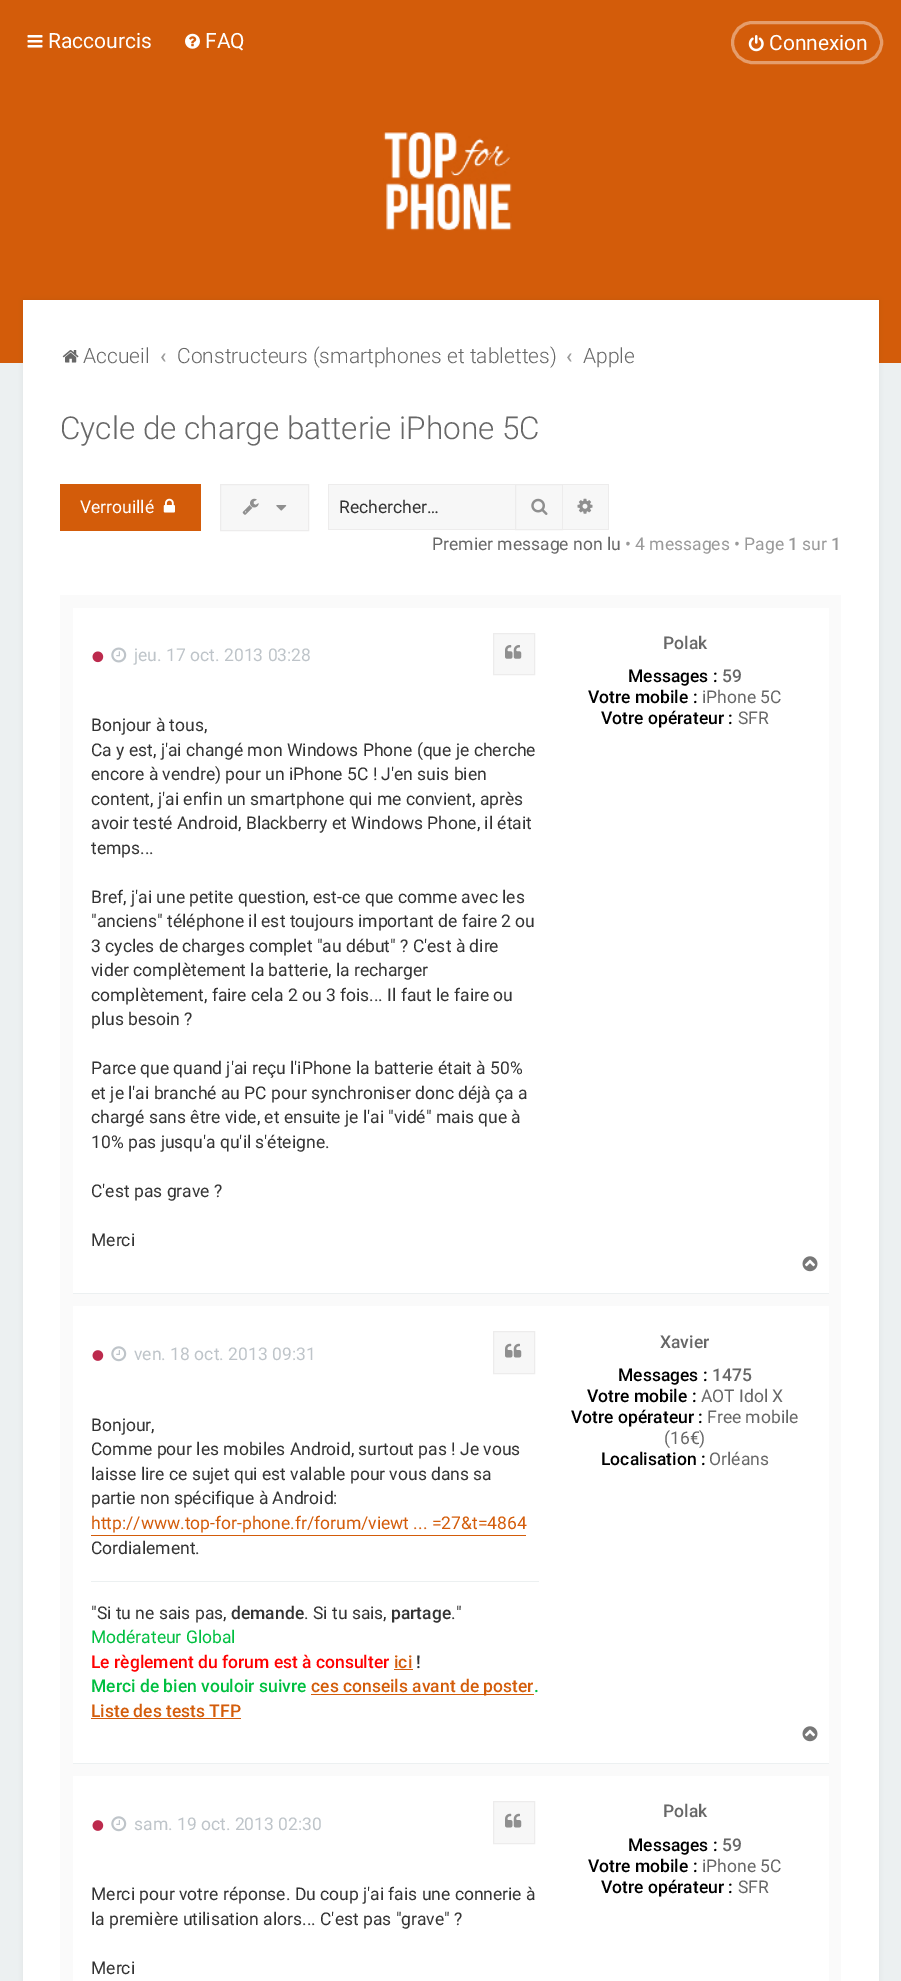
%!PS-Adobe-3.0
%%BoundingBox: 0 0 901 1981
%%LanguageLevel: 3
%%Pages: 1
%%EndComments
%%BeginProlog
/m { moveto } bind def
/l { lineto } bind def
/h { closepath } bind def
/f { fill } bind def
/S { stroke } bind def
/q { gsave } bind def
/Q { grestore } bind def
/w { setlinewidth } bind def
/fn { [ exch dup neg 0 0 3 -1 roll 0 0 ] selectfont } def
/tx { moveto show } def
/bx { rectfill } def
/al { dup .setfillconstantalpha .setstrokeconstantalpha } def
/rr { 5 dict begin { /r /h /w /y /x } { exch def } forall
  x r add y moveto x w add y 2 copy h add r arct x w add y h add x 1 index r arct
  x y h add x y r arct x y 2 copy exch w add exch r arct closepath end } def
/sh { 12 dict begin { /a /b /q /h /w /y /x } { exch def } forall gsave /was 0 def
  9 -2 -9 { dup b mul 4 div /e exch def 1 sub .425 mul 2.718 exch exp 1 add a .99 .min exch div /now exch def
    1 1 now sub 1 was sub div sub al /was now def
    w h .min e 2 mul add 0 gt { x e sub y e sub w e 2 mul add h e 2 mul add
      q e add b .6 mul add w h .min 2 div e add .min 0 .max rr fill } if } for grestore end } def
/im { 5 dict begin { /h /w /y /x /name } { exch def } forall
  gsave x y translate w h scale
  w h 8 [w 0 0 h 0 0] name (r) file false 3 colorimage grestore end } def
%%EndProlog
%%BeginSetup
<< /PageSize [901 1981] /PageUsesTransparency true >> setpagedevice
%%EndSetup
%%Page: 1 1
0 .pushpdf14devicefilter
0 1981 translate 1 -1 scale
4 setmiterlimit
0.925 0.941 0.945 setrgbcolor
0 0 901 1981 bx
0.827 0.361 0.039 setrgbcolor
0 0 901 363 bx
(image0.raw) 383 131 129 100 im
(image1.raw) 27 35 16 13 im
/Roboto-Regular 21 fn
1 setgray
(Raccourcis) 48 48 tx
(image2.raw) 185 33 15 16 im
(FAQ) 205 48 tx
0.898 0.616 0.424 setrgbcolor
3 w
732.5 22.5 149 40 20 rr S
(image3.raw) 748 35 16 17 im
1 setgray
(Connexion) 769 50 tx
0 setgray
23 300 856 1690 0 3 0.05 sh
1 setgray
23 300 856 1681 bx
(image4.raw) 62 350 17 13 im
/Roboto-Light 21 fn
0.404 setgray
(Accueil) 83 363 tx
/Roboto-Medium 21 fn
0.6 setgray
(‹) 160 363 tx
/Roboto-Light 21 fn
0.404 setgray
(Constructeurs \(smartphones et tablettes\)) 177 363 tx
/Roboto-Medium 21 fn
0.6 setgray
(‹) 566 363 tx
/Roboto-Light 21 fn
0.404 setgray
(Apple) 583 363 tx
/Roboto-Light 31.5 fn
(Cycle de charge batterie iPhone 5C) 60 439 tx
0.827 0.361 0.039 setrgbcolor
60 484 141 47 bx
/Roboto-Regular 17.5 fn
1 setgray
(Verrouillé) 80 513 tx
(image5.raw) 163 498 12 15 im
0.969 setgray
220.5 484.5 m 308.5 484.5 l 308.5 530.5 l 220.5 530.5 l h q f Q
0.929 0.925 0.925 setrgbcolor
1 w
S
(image6.raw) 242 498 17 17 im
(image7.raw) 276 505 11 6 im
0.969 setgray
329 485 186 44 bx
0.929 0.925 0.925 setrgbcolor
328 484 187 1 bx
328 529 187 1 bx
328 484 1 46 bx
0.2 setgray
(Rechercher…) 339 513 tx
0.969 setgray
515.5 484.5 m 562.5 484.5 l 562.5 529.5 l 515.5 529.5 l h q f Q
0.929 0.925 0.925 setrgbcolor
S
(image8.raw) 531 498 17 17 im
0.969 setgray
563 485 45 44 bx
0.929 0.925 0.925 setrgbcolor
563 484 46 1 bx
608 484 1 46 bx
563 529 46 1 bx
(image9.raw) 577 498 16 16 im
0.404 setgray
(Premier message non lu) 432 550 tx
0.6 setgray
(• 4 messages • Page) 625 550 tx
/Roboto-Medium 17.5 fn
(1) 788 550 tx
/Roboto-Regular 17.5 fn
(sur) 802 550 tx
/Roboto-Medium 17.5 fn
(1) 831 550 tx
0.98 setgray
60 595 781 1386 bx
1 setgray
73 608 756 685 bx
0.925 0.941 0.945 setrgbcolor
73 1293 756 1 bx
(image10.raw) 92 651 12 12 im
(image11.raw) 111 647 16 16 im
/Roboto-Regular 17.5 fn
0.745 0.769 0.788 setrgbcolor
(jeu. 17 oct. 2013 03:28) 134 661 tx
0.969 setgray
493.5 633.5 m 534.5 633.5 l 534.5 674.5 l 493.5 674.5 l h q f Q
0.929 0.925 0.925 setrgbcolor
S
(image12.raw) 505 645 17 14 im
0.2 setgray
(Bonjour à tous,) 91 731 tx
(Ca y est, j'ai changé mon Windows Phone \(que je cherche) 91 756 tx
(encore à vendre\) pour un iPhone 5C ! J'en suis bien) 91 780 tx
(content, j'ai enfin un smartphone qui me convient, après) 91 805 tx
(avoir testé Android, Blackberry et Windows Phone, il était) 91 829 tx
(temps...) 91 854 tx
(Bref, j'ai une petite question, est-ce que comme avec les) 91 903 tx
("anciens" téléphone il est toujours important de faire 2 ou) 91 927 tx
(3 cycles de charges complet "au début" ? C'est à dire) 91 952 tx
(vider complètement la batterie, la recharger) 91 976 tx
(complètement, faire cela 2 ou 3 fois... Il faut le faire ou) 91 1001 tx
(plus besoin ?) 91 1025 tx
(Parce que quand j'ai reçu l'iPhone la batterie était à 50%) 91 1074 tx
(et je l'ai branché au PC pour synchroniser donc déjà ça a) 91 1099 tx
(chargé sans être vide, et ensuite je l'ai "vidé" mais que à) 91 1123 tx
(10% pas jusqu'a qu'il s'éteigne.) 91 1148 tx
(C'est pas grave ?) 91 1197 tx
(Merci) 91 1246 tx
/Roboto-Medium 17.5 fn
0.404 setgray
(Polak) 663 649 tx
0 setgray
(Messages :) 628 682 tx
0.404 setgray
(59) 722 682 tx
0 setgray
(Votre mobile :) 588 703 tx
/Roboto-Regular 17.5 fn
0.404 setgray
(iPhone 5C) 702 703 tx
/Roboto-Medium 17.5 fn
0 setgray
(Votre opérateur :) 601 724 tx
/Roboto-Regular 17.5 fn
0.404 setgray
(SFR) 738 724 tx
(image13.raw) 802 1256 16 16 im
1 setgray
73 1306 756 457 bx
0.925 0.941 0.945 setrgbcolor
73 1763 756 1 bx
(image14.raw) 92 1350 12 11 im
(image15.raw) 111 1346 16 16 im
0.745 0.769 0.788 setrgbcolor
(ven. 18 oct. 2013 09:31) 134 1360 tx
0.969 setgray
493.5 1331.5 m 534.5 1331.5 l 534.5 1373.5 l 493.5 1373.5 l h q f Q
0.929 0.925 0.925 setrgbcolor
S
(image16.raw) 505 1343 17 15 im
0.2 setgray
(Bonjour,) 91 1431 tx
(Comme pour les mobiles Android, surtout pas ! Je vous) 91 1455 tx
(laisse lire ce sujet qui est valable pour vous dans sa) 91 1480 tx
(partie non spécifique à Android:) 91 1504 tx
0.827 0.361 0.039 setrgbcolor
91 1535 435 1 bx
(http://www.top-for-phone.fr/forum/viewt ... =27&t=4864) 91 1529 tx
0.2 setgray
(Cordialement.) 91 1554 tx
0.925 0.941 0.945 setrgbcolor
91 1581 448 1 bx
0.2 setgray
("Si tu ne sais pas,) 91 1619 tx
/Roboto-Medium 17.5 fn
(demande) 231 1619 tx
/Roboto-Regular 17.5 fn
(. Si tu sais,) 304 1619 tx
/Roboto-Medium 17.5 fn
(partage) 391 1619 tx
/Roboto-Regular 17.5 fn
(.") 451 1619 tx
0 0.749 0.251 setrgbcolor
(Modérateur Global) 91 1643 tx
/Roboto-Medium 17.5 fn
1 0 0 setrgbcolor
(Le règlement du forum est à consulter) 91 1668 tx
0.827 0.361 0.039 setrgbcolor
(ici) 394 1668 tx
394 1669 19 1 bx
0.2 setgray
(!) 416 1668 tx
0 0.749 0.251 setrgbcolor
(Merci de bien vouloir suivre) 91 1692 tx
0.827 0.361 0.039 setrgbcolor
311 1694 223 1 bx
(ces conseils avant de poster) 311 1692 tx
0 0.749 0.251 setrgbcolor
(.) 534 1692 tx
0.827 0.361 0.039 setrgbcolor
(Liste des tests TFP) 91 1717 tx
91 1718 150 1 bx
0.404 setgray
(Xavier) 660 1348 tx
0 setgray
(Messages :) 618 1381 tx
0.404 setgray
(1475) 712 1381 tx
0 setgray
(Votre mobile :) 587 1402 tx
/Roboto-Regular 17.5 fn
0.404 setgray
(AOT Idol X) 701 1402 tx
/Roboto-Medium 17.5 fn
0 setgray
(Votre opérateur :) 571 1423 tx
/Roboto-Regular 17.5 fn
0.404 setgray
(Free mobile) 707 1423 tx
(\(16€\)) 664 1444 tx
/Roboto-Medium 17.5 fn
0 setgray
(Localisation :) 601 1465 tx
/Roboto-Regular 17.5 fn
0.404 setgray
(Orléans) 709 1465 tx
(image13.raw) 802 1726 16 16 im
1 setgray
73 1776 756 205 bx
(image14.raw) 92 1820 12 11 im
(image15.raw) 111 1816 16 16 im
0.745 0.769 0.788 setrgbcolor
(sam. 19 oct. 2013 02:30) 134 1830 tx
0.969 setgray
493.5 1801.5 m 534.5 1801.5 l 534.5 1843.5 l 493.5 1843.5 l h q f Q
0.929 0.925 0.925 setrgbcolor
S
(image16.raw) 505 1813 17 15 im
0.2 setgray
(Merci pour votre réponse. Du coup j'ai fais une connerie à) 91 1900 tx
(la première utilisation alors... C'est pas "grave" ?) 91 1925 tx
(Merci) 91 1974 tx
/Roboto-Medium 17.5 fn
0.404 setgray
(Polak) 663 1817 tx
0 setgray
(Messages :) 628 1851 tx
0.404 setgray
(59) 722 1851 tx
0 setgray
(Votre mobile :) 588 1872 tx
/Roboto-Regular 17.5 fn
0.404 setgray
(iPhone 5C) 702 1872 tx
/Roboto-Medium 17.5 fn
0 setgray
(Votre opérateur :) 601 1893 tx
/Roboto-Regular 17.5 fn
0.404 setgray
(SFR) 738 1893 tx
.poppdf14devicefilter showpage
%%EOF
